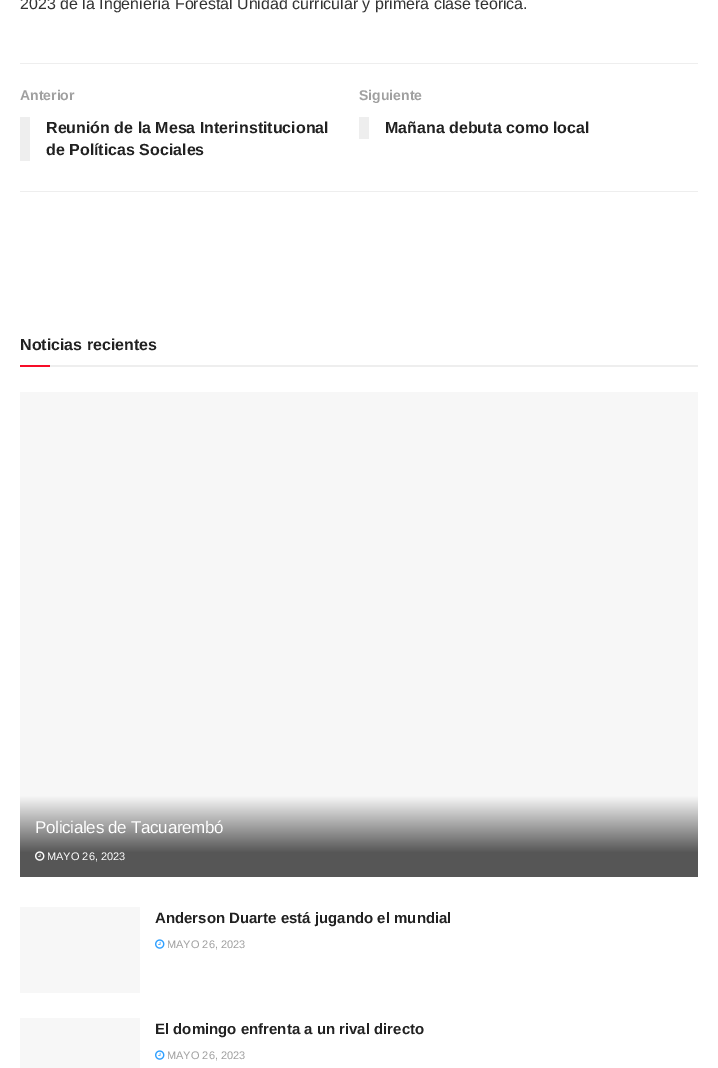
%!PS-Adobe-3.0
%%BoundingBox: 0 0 718 1068
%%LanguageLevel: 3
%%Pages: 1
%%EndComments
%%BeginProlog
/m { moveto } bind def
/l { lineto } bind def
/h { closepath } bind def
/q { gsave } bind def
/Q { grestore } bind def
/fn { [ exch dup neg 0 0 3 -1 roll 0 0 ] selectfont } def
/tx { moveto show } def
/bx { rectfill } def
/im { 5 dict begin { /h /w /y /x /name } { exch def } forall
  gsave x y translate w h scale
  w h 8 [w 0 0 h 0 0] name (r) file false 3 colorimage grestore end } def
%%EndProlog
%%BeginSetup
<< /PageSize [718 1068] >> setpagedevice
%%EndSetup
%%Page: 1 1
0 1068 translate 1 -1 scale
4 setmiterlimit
1 setgray
0 0 718 1068 bx
/LiberationSans-Regular 16 fn
0.2 setgray
(2023 de la Ingeniería Forestal Unidad curricular y primera clase teórica.) 20 9 tx
0.933 setgray
20 63 678 1 bx
20 191 678 1 bx
/LiberationSans-Bold 14 fn
0.627 setgray
(Anterior) 20 100 tx
0.933 setgray
20 117 10 44 bx
/LiberationSans-Bold 16 fn
0.129 setgray
(Reunión de la Mesa Interinstitucional) 46 133 tx
(de Políticas Sociales) 46 155 tx
/LiberationSans-Bold 14 fn
0.627 setgray
(Siguiente) 359 100 tx
0.933 setgray
359 117 10 22 bx
/LiberationSans-Bold 16 fn
0.129 setgray
(Mañana debuta como local) 385 133 tx
0.933 setgray
50 365 648 2 bx
0.129 setgray
(Noticias recientes) 20 350 tx
0.969 0.051 0.157 setrgbcolor
20 365 30 2 bx
0.969 setgray
20 392 678 404 bx
q 20 796 m 698 796 l 698 877 l 20 877 l h clip newpath
<< /ShadingType 2 /ColorSpace /DeviceRGB /Coords [359 796 359 877] /Extend [true true] /Function << /FunctionType 3 /Domain [0 1] /Functions [<< /FunctionType 2 /Domain [0 1] /C0 [0.969 0.969 0.969] /C1 [0.337 0.337 0.337] /N 1 >> << /FunctionType 2 /Domain [0 1] /C0 [0.337 0.337 0.337] /C1 [0.337 0.337 0.337] /N 1 >>] /Bounds [0.7] /Encode [0 1 0 1] >> >> shfill Q
/LiberationSans-Regular 17 fn
1 setgray
35 833 m -0.3 0 (Policiales de Tacuarembó) ashow
(image0.raw) 35 851 10 10 im
/LiberationSans-Regular 11 fn
(MAYO 26, 2023) 47 860 tx
0.969 setgray
20 907 120 86 bx
/LiberationSans-Bold 15 fn
0.129 setgray
(Anderson Duarte está jugando el mundial) 155 923 tx
(image1.raw) 155 939 10 10 im
/LiberationSans-Regular 11 fn
0.627 setgray
(MAYO 26, 2023) 167 948 tx
0.969 setgray
20 1018 120 50 bx
/LiberationSans-Bold 15 fn
0.129 setgray
(El domingo enfrenta a un rival directo) 155 1034 tx
(image1.raw) 155 1050 10 10 im
/LiberationSans-Regular 11 fn
0.627 setgray
(MAYO 26, 2023) 167 1059 tx
showpage
%%EOF
